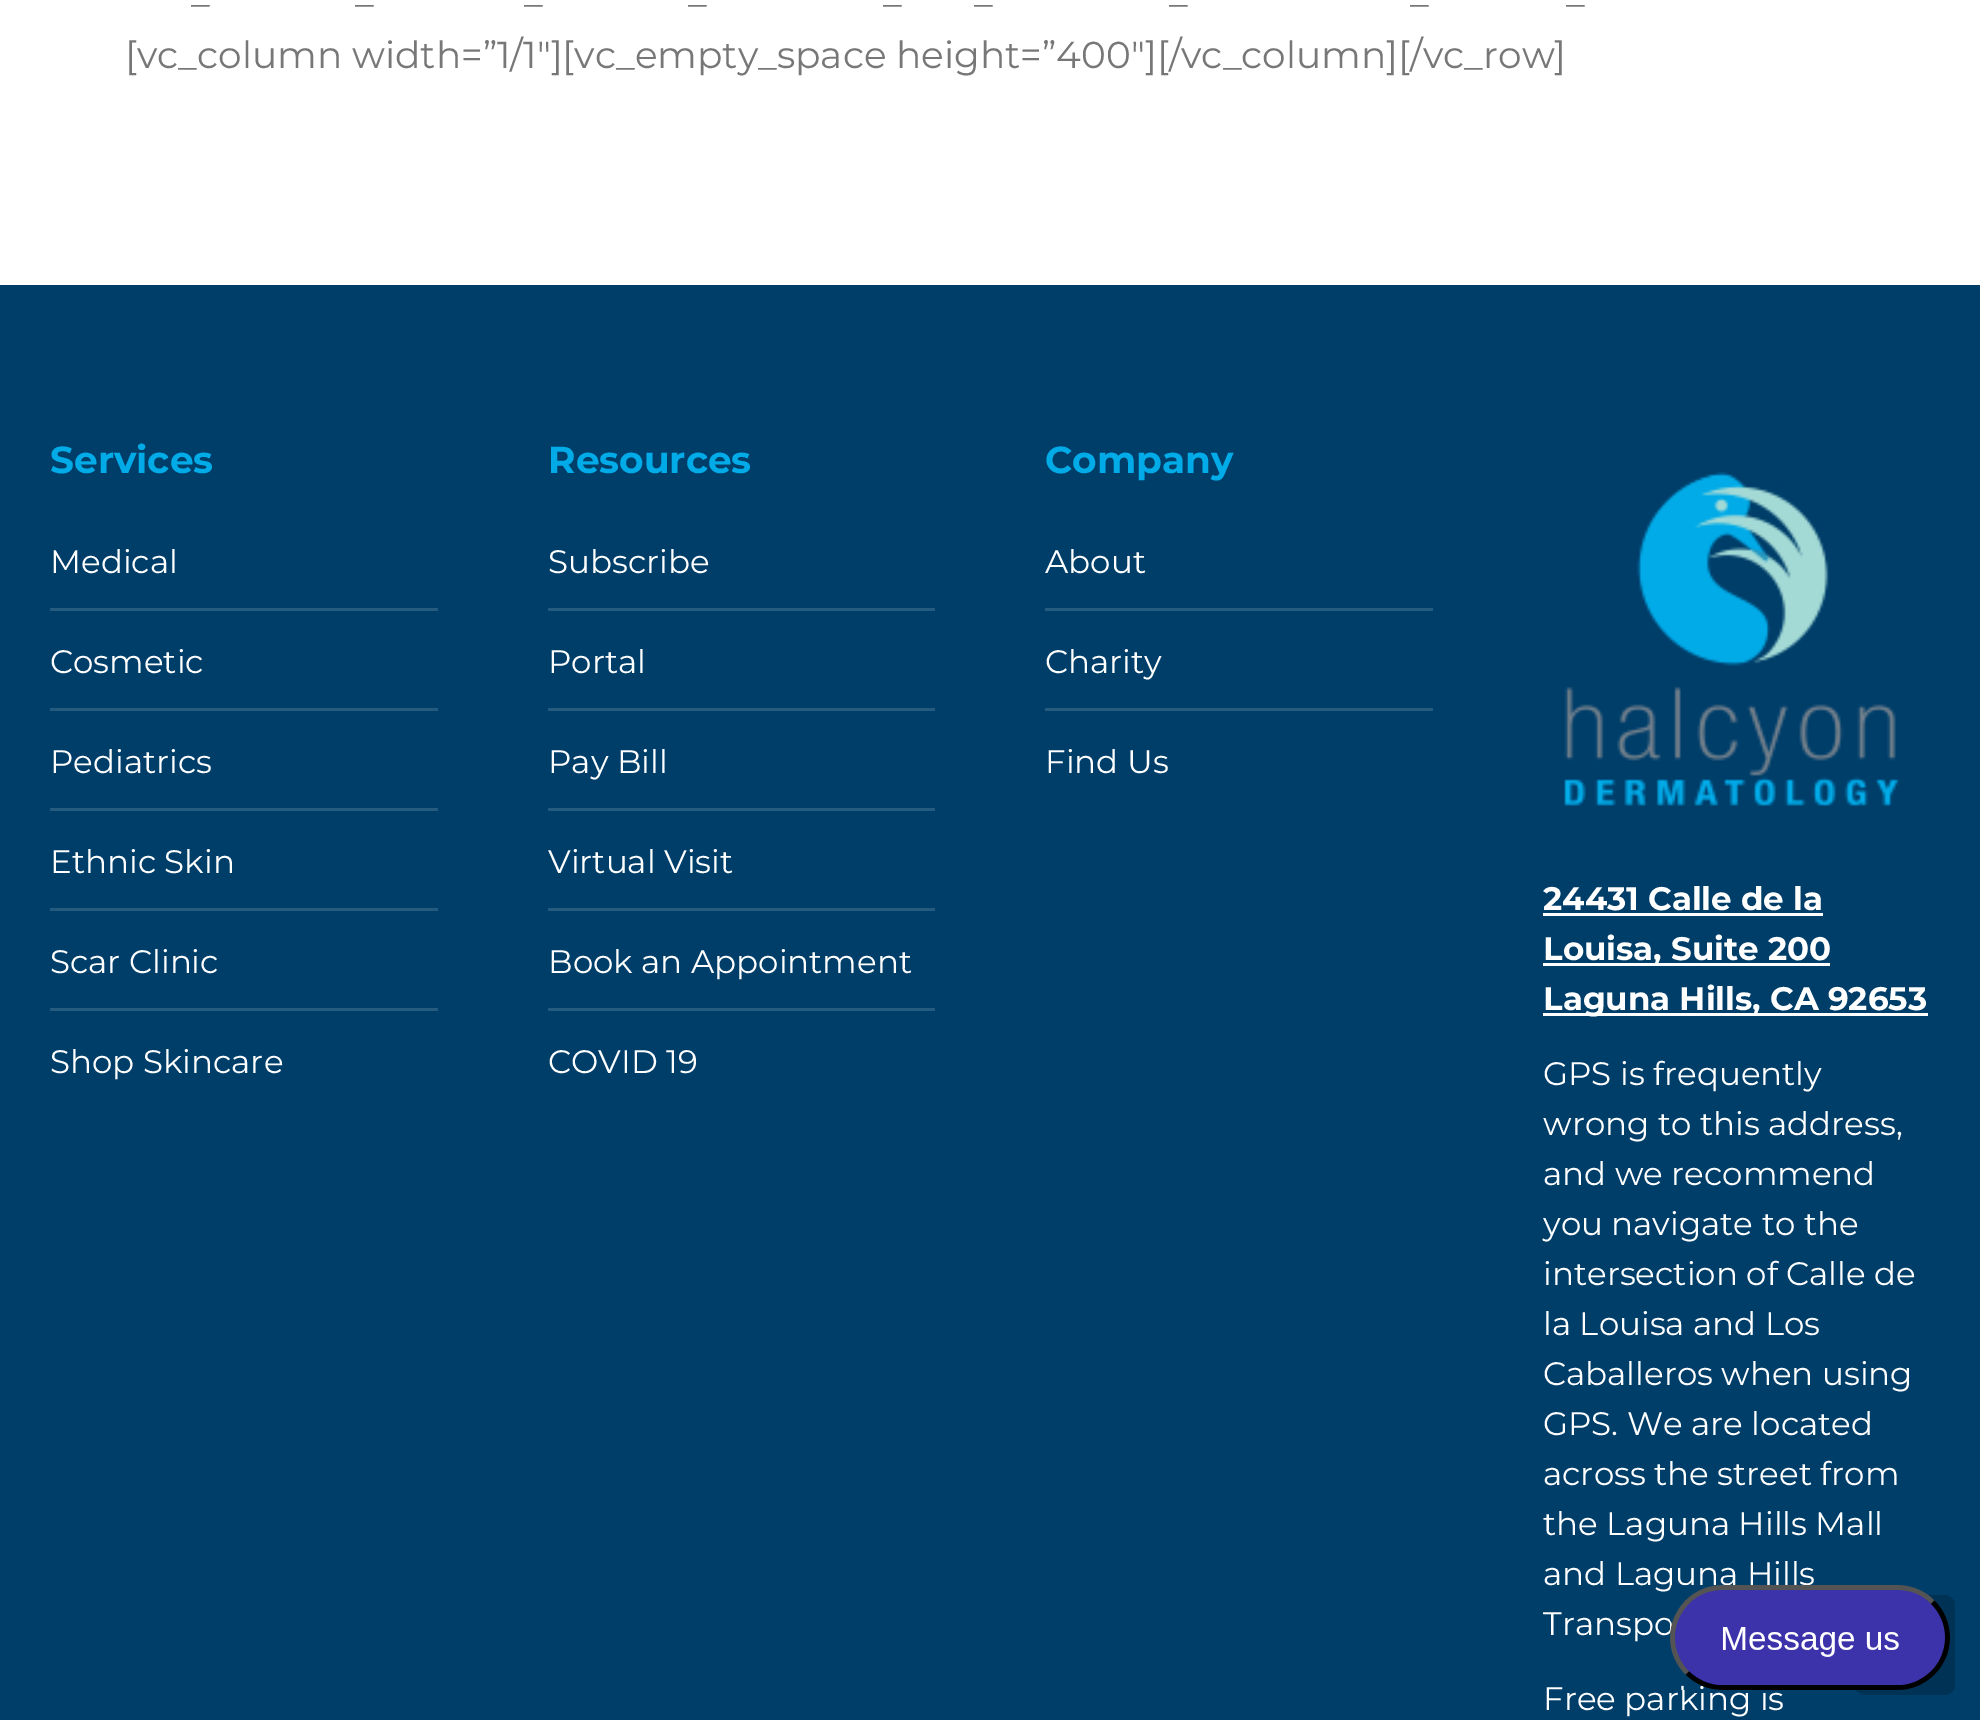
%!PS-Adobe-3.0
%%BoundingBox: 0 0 1980 1720
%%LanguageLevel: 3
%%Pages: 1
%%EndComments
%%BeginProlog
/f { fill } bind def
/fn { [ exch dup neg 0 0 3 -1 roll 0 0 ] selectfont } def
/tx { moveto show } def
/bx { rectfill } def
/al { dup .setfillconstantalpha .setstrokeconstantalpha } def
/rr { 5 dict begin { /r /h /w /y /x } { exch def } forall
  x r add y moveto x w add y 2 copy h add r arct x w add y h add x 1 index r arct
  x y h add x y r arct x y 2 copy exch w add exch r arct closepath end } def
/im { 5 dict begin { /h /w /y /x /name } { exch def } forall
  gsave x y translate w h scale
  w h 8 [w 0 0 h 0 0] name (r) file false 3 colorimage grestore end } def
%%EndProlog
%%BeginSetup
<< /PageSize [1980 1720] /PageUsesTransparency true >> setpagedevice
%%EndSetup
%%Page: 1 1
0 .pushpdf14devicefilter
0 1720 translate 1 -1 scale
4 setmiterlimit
1 setgray
0 0 1980 1720 bx
/Montserrat-Regular 37.5 fn
0.467 setgray
(_) 191 5 tx
(_) 355 5 tx
(_) 524 5 tx
(_) 688 5 tx
(_) 883 5 tx
(_) 974 5 tx
(_) 1169 5 tx
(_) 1410 5 tx
(_) 1566 5 tx
([vc_column width=”1/1″][vc_empty_space height=”400″][/vc_column][/vc_row]) 125 68 tx
0 0.243 0.416 setrgbcolor
0 285 1980 1435 bx
/Montserrat-Bold 37.5 fn
0 0.671 0.91 setrgbcolor
(Services) 50 473 tx
/Montserrat-Regular 32.5 fn
1 setgray
(Medical) 50 573 tx
0.149 0.357 0.502 setrgbcolor
50 608 388 3 bx
1 setgray
(Cosmetic) 50 673 tx
0.149 0.357 0.502 setrgbcolor
50 708 388 3 bx
1 setgray
(Pediatrics) 50 773 tx
0.149 0.357 0.502 setrgbcolor
50 808 388 3 bx
1 setgray
(Ethnic Skin) 50 873 tx
0.149 0.357 0.502 setrgbcolor
50 908 388 3 bx
1 setgray
(Scar Clinic) 50 973 tx
0.149 0.357 0.502 setrgbcolor
50 1008 388 3 bx
1 setgray
(Shop Skincare) 50 1073 tx
/Montserrat-Bold 37.5 fn
0 0.671 0.91 setrgbcolor
(Resources) 548 473 tx
/Montserrat-Regular 32.5 fn
1 setgray
(Subscribe) 548 573 tx
0.149 0.357 0.502 setrgbcolor
548 608 387 3 bx
1 setgray
(Portal) 548 673 tx
0.149 0.357 0.502 setrgbcolor
548 708 387 3 bx
1 setgray
(Pay Bill) 548 773 tx
0.149 0.357 0.502 setrgbcolor
548 808 387 3 bx
1 setgray
(Virtual Visit) 548 873 tx
0.149 0.357 0.502 setrgbcolor
548 908 387 3 bx
1 setgray
(Book an Appointment) 548 973 tx
0.149 0.357 0.502 setrgbcolor
548 1008 387 3 bx
1 setgray
(COVID 19) 548 1073 tx
/Montserrat-Bold 37.5 fn
0 0.671 0.91 setrgbcolor
(Company) 1045 473 tx
/Montserrat-Regular 32.5 fn
1 setgray
(About) 1045 573 tx
0.149 0.357 0.502 setrgbcolor
1045 608 388 3 bx
1 setgray
(Charity) 1045 673 tx
0.149 0.357 0.502 setrgbcolor
1045 708 388 3 bx
1 setgray
(Find Us) 1045 773 tx
(image0.raw) 1564 472 335 334 im
/Montserrat-Bold 32.5 fn
(24431 Calle de la) 1543 910 tx
1543 913 280 3 bx
1543 963 287 3 bx
(Louisa, Suite 200) 1543 960 tx
1543 1013 385 3 bx
(Laguna Hills, CA 92653) 1543 1010 tx
/Montserrat-Regular 32.5 fn
(GPS is frequently) 1543 1085 tx
(wrong to this address,) 1543 1135 tx
(and we recommend) 1543 1185 tx
(you navigate to the) 1543 1235 tx
(intersection of Calle de) 1543 1285 tx
(la Louisa and Los) 1543 1335 tx
(Caballeros when using) 1543 1385 tx
(GPS. We are located) 1543 1435 tx
(across the street from) 1543 1485 tx
(the Laguna Hills Mall) 1543 1535 tx
(and Laguna Hills) 1543 1585 tx
(Transpo) 1543 1635 tx
(Free parking is) 1543 1710 tx
0.2 al
0 setgray
1855 1595 100 100 10 rr f
1 al
(image1.raw) 1670 1585 280 105 im
.poppdf14devicefilter showpage
%%EOF
